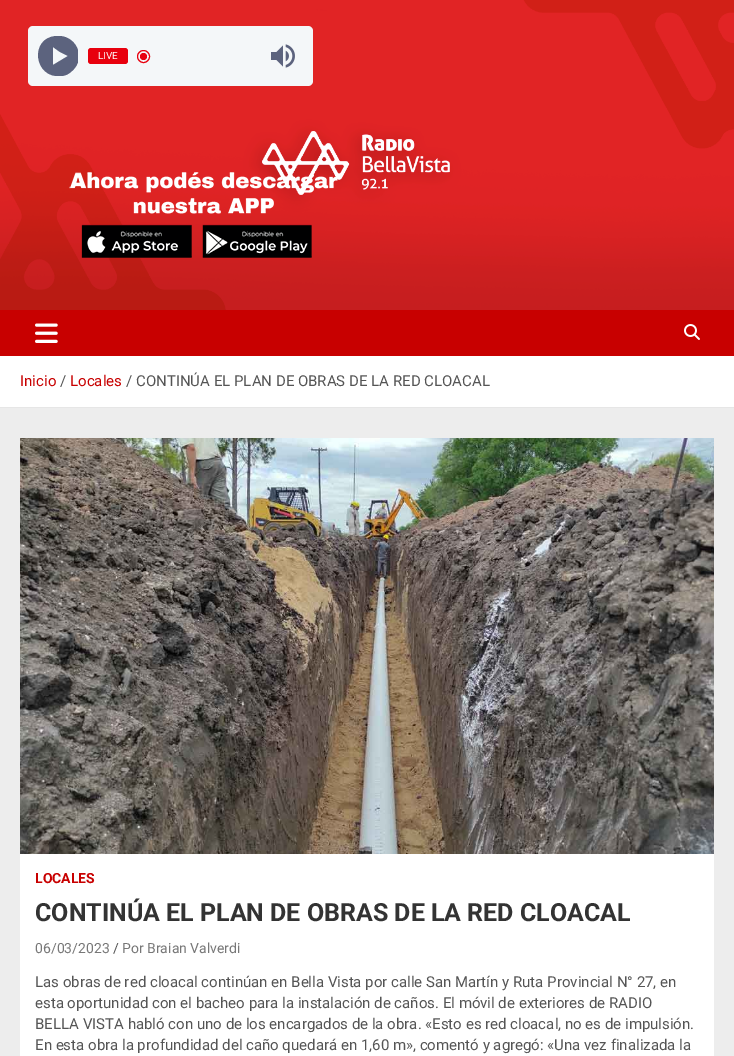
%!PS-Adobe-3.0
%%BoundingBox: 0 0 734 1056
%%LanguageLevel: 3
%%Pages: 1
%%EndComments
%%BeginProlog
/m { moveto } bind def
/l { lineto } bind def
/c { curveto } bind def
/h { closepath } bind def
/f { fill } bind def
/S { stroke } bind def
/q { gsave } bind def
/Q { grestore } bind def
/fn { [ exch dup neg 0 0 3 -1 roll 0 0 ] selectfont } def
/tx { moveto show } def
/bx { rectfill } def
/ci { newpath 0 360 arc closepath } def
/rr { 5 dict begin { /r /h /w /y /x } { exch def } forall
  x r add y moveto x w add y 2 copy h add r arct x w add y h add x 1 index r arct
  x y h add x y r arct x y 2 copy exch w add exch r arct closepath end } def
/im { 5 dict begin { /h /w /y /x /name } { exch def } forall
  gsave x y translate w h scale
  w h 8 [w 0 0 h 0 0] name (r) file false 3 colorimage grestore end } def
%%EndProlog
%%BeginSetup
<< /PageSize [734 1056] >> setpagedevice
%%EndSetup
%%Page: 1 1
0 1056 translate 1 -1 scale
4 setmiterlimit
0.929 setgray
0 0 734 1056 bx
(image0.raw) 0 0 734 310 im
0.957 0.969 0.976 setrgbcolor
28 26 285 60 5 rr f
q
37 36 41 40 rectclip
0.361 0.388 0.494 setrgbcolor
56 36 m 29 38 34 79 61 76 c 65 76 69 74 72 71 c 87 58 76 34 56 36 c h 60 52 m 68 56 l 53 65 l 53 47 l h f
Q
0.91 0 0.055 setrgbcolor
88 48 40 16 3 rr f
/Roboto-Regular 10 fn
1 setgray
(LIVE) 98 59 tx
0.91 0 0.055 setrgbcolor
143.5 56.5 3.5 ci f
143.5 56.5 6 ci S
(image1.raw) 271 44 24 24 im
(image2.raw) 69 172 269 86 im
0.784 0 0 setrgbcolor
0 310 734 46 bx
(image3.raw) 35 323 23 20 im
(image4.raw) 684 324 16 16 im
1 setgray
0 356 734 51 bx
0.902 setgray
0 407 734 1 bx
/Roboto-Regular 15 fn
0.784 0 0 setrgbcolor
(Inicio) 20 386 tx
0.333 setgray
(/) 60 386 tx
0.784 0 0 setrgbcolor
(Locales) 70 386 tx
0.333 setgray
(/ CONTINÚA EL PLAN DE OBRAS DE LA RED CLOACAL) 126 386 tx
1 setgray
20 854 694 202 bx
(image5.raw) 20 438 694 416 im
/Roboto-Bold 14 fn
0.784 0 0 setrgbcolor
(LOCALES) 35 883 tx
/Roboto-Bold 25 fn
0.2 setgray
(CONTINÚA EL PLAN DE OBRAS DE LA RED CLOACAL) 35 921 tx
/Roboto-Regular 14 fn
0.467 setgray
(06/03/2023) 35 953 tx
0.333 setgray
(/) 113 953 tx
0.467 setgray
(Por Braian Valverdi) 122 953 tx
/Roboto-Regular 15 fn
0.333 setgray
(Las obras de red cloacal continúan en Bella Vista por calle San Martín y Ruta Provincial N° 27, en) 35 987 tx
(esta oportunidad con el bacheo para la instalación de caños. El móvil de exteriores de RADIO) 35 1008 tx
(BELLA VISTA habló con uno de los encargados de la obra. «Esto es red cloacal, no es de impulsión.) 35 1029 tx
(En esta obra la profundidad del caño quedará en 1,60 m», comentó y agregó: «Una vez finalizada la) 35 1050 tx
showpage
%%EOF
